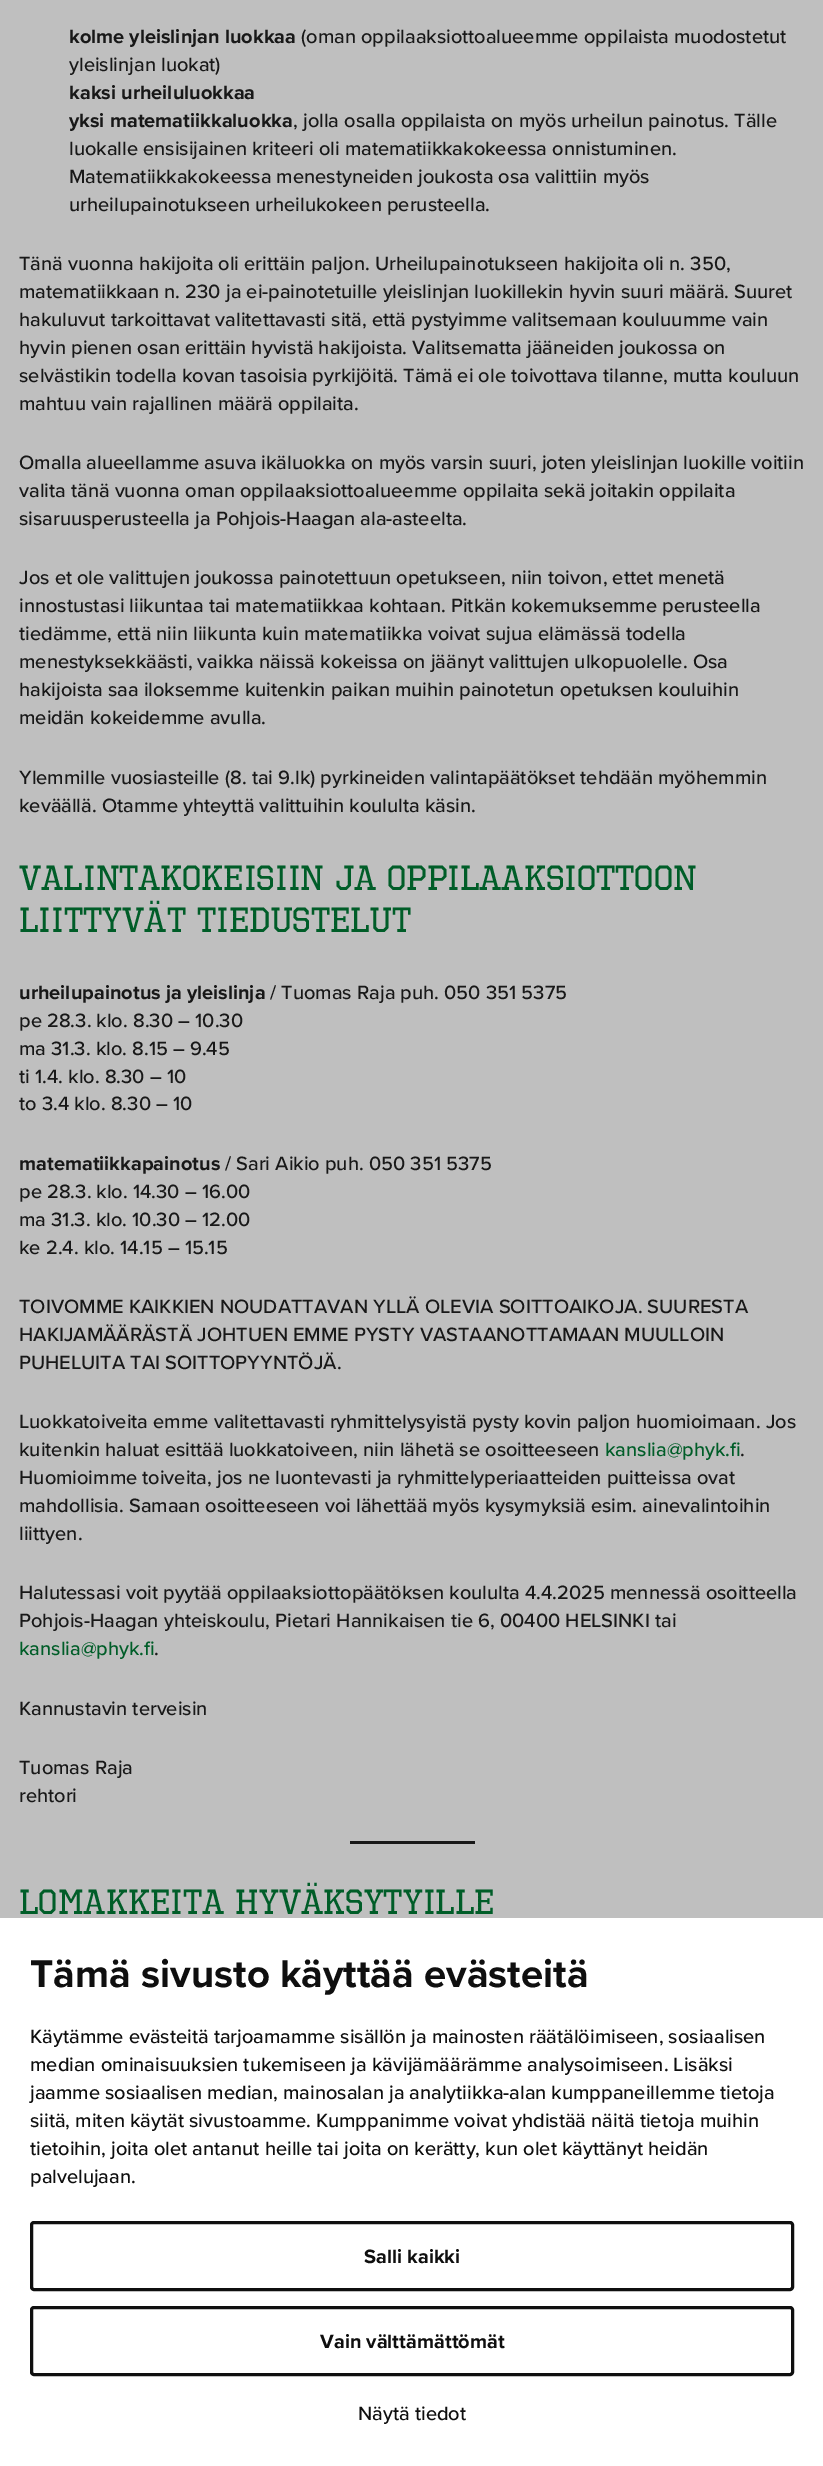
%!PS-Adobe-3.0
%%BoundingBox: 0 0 823 2466
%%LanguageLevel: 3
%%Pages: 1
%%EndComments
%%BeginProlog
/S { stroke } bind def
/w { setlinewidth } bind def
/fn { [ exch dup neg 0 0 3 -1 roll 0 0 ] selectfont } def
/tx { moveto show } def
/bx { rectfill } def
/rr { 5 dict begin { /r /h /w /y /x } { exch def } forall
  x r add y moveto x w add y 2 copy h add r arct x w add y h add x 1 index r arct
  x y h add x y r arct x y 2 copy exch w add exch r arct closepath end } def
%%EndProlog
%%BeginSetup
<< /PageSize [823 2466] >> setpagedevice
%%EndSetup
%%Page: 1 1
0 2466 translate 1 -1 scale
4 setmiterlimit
0.749 setgray
0 0 823 2466 bx
/ProximaNova-Bold 20 fn
0.094 setgray
(kolme yleislinjan luokkaa) 69 43 tx
/ProximaNova-Medium 20 fn
(\(oman oppilaaksiottoalueemme oppilaista muodostetut) 301 43 tx
(yleislinjan luokat\)) 69 71 tx
/ProximaNova-Bold 20 fn
(kaksi urheiluluokkaa) 69 99 tx
(yksi matematiikkaluokka) 69 127 tx
/ProximaNova-Medium 20 fn
(, jolla osalla oppilaista on myös urheilun painotus. Tälle) 293 127 tx
(luokalle ensisijainen kriteeri oli matematiikkakokeessa onnistuminen.) 69 155 tx
(Matematiikkakokeessa menestyneiden joukosta osa valittiin myös) 69 183 tx
(urheilupainotukseen urheilukokeen perusteella.) 69 211 tx
(Tänä vuonna hakijoita oli erittäin paljon. Urheilupainotukseen hakijoita oli n. 350,) 19 270 tx
(matematiikkaan n. 230 ja ei-painotetuille yleislinjan luokillekin hyvin suuri määrä. Suuret) 19 298 tx
(hakuluvut tarkoittavat valitettavasti sitä, että pystyimme valitsemaan kouluumme vain) 19 326 tx
(hyvin pienen osan erittäin hyvistä hakijoista. Valitsematta jääneiden joukossa on) 19 354 tx
(selvästikin todella kovan tasoisia pyrkijöitä. Tämä ei ole toivottava tilanne, mutta kouluun) 19 382 tx
(mahtuu vain rajallinen määrä oppilaita.) 19 410 tx
(Omalla alueellamme asuva ikäluokka on myös varsin suuri, joten yleislinjan luokille voitiin) 19 469 tx
(valita tänä vuonna oman oppilaaksiottoalueemme oppilaita sekä joitakin oppilaita) 19 497 tx
(sisaruusperusteella ja Pohjois-Haagan ala-asteelta.) 19 525 tx
(Jos et ole valittujen joukossa painotettuun opetukseen, niin toivon, ettet menetä) 19 584 tx
(innostustasi liikuntaa tai matematiikkaa kohtaan. Pitkän kokemuksemme perusteella) 19 612 tx
(tiedämme, että niin liikunta kuin matematiikka voivat sujua elämässä todella) 19 640 tx
(menestyksekkäästi, vaikka näissä kokeissa on jäänyt valittujen ulkopuolelle. Osa) 19 668 tx
(hakijoista saa iloksemme kuitenkin paikan muihin painotetun opetuksen kouluihin) 19 696 tx
(meidän kokeidemme avulla.) 19 724 tx
(Ylemmille vuosiasteille \(8. tai 9.lk\) pyrkineiden valintapäätökset tehdään myöhemmin) 19 784 tx
(keväällä. Otamme yhteyttä valittuihin koululta käsin.) 19 812 tx
/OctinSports-Regular 35 fn
0 0.365 0.157 setrgbcolor
(Valintakokeisiin ja oppilaaksiottoon) 19 890 tx
(liittyvät tiedustelut) 19 932 tx
/ProximaNova-Bold 20 fn
0.094 setgray
(urheilupainotus ja yleislinja) 19 999 tx
/ProximaNova-Medium 20 fn
(/ Tuomas Raja puh. 050 351 5375) 270 999 tx
(pe 28.3. klo. 8.30 – 10.30) 19 1027 tx
(ma 31.3. klo. 8.15 – 9.45) 19 1055 tx
(ti 1.4. klo. 8.30 – 10) 19 1083 tx
(to 3.4 klo. 8.30 – 10) 19 1110 tx
/ProximaNova-Bold 20 fn
(matematiikkapainotus) 19 1170 tx
/ProximaNova-Medium 20 fn
(/ Sari Aikio puh. 050 351 5375) 225 1170 tx
(pe 28.3. klo. 14.30 – 16.00) 19 1198 tx
(ma 31.3. klo. 10.30 – 12.00) 19 1226 tx
(ke 2.4. klo. 14.15 – 15.15) 19 1254 tx
(TOIVOMME KAIKKIEN NOUDATTAVAN YLLÄ OLEVIA SOITTOAIKOJA. SUURESTA) 19 1313 tx
(HAKIJAMÄÄRÄSTÄ JOHTUEN EMME PYSTY VASTAANOTTAMAAN MUULLOIN) 19 1341 tx
(PUHELUITA TAI SOITTOPYYNTÖJÄ.) 19 1369 tx
(Luokkatoiveita emme valitettavasti ryhmittelysyistä pysty kovin paljon huomioimaan. Jos) 19 1428 tx
(kuitenkin haluat esittää luokkatoiveen, niin lähetä se osoitteeseen) 19 1456 tx
0 0.365 0.157 setrgbcolor
(kanslia@phyk.fi) 605 1456 tx
0.094 setgray
(.) 740 1456 tx
(Huomioimme toiveita, jos ne luontevasti ja ryhmittelyperiaatteiden puitteissa ovat) 19 1484 tx
(mahdollisia. Samaan osoitteeseen voi lähettää myös kysymyksiä esim. ainevalintoihin) 19 1512 tx
(liittyen.) 19 1540 tx
(Halutessasi voit pyytää oppilaaksiottopäätöksen koululta 4.4.2025 mennessä osoitteella) 19 1599 tx
(Pohjois-Haagan yhteiskoulu, Pietari Hannikaisen tie 6, 00400 HELSINKI tai) 19 1627 tx
0 0.365 0.157 setrgbcolor
(kanslia@phyk.fi) 19 1655 tx
0.094 setgray
(.) 154 1655 tx
(Kannustavin terveisin) 19 1715 tx
(Tuomas Raja) 19 1774 tx
(rehtori) 19 1802 tx
350 1841 125 3 bx
/OctinSports-Regular 35 fn
0 0.365 0.157 setrgbcolor
(LOMAKKEITA HYVÄKSYTYILLE) 19 1914 tx
1 setgray
0 1918 823 548 bx
/ProximaNova-Bold 40 fn
0.059 setgray
(Tämä sivusto käyttää evästeitä) 30 1987 tx
/ProximaNova-Medium 20 fn
(Käytämme evästeitä tarjoamamme sisällön ja mainosten räätälöimiseen, sosiaalisen) 30 2043 tx
(median ominaisuuksien tukemiseen ja kävijämäärämme analysoimiseen. Lisäksi) 30 2071 tx
(jaamme sosiaalisen median, mainosalan ja analytiikka-alan kumppaneillemme tietoja) 30 2099 tx
(siitä, miten käytät sivustoamme. Kumppanimme voivat yhdistää näitä tietoja muihin) 30 2127 tx
(tietoihin, joita olet antanut heille tai joita on kerätty, kun olet käyttänyt heidän) 30 2155 tx
(palvelujaan.) 30 2183 tx
3 w
31.5 2222.5 761 67 2.5 rr S
/ProximaNova-Bold 20 fn
(Salli kaikki) 364 2263 tx
31.5 2307.5 761 67 2.5 rr S
(Vain välttämättömät) 320 2348 tx
/ProximaNova-Medium 20 fn
(Näytä tiedot) 358 2420 tx
showpage
%%EOF
